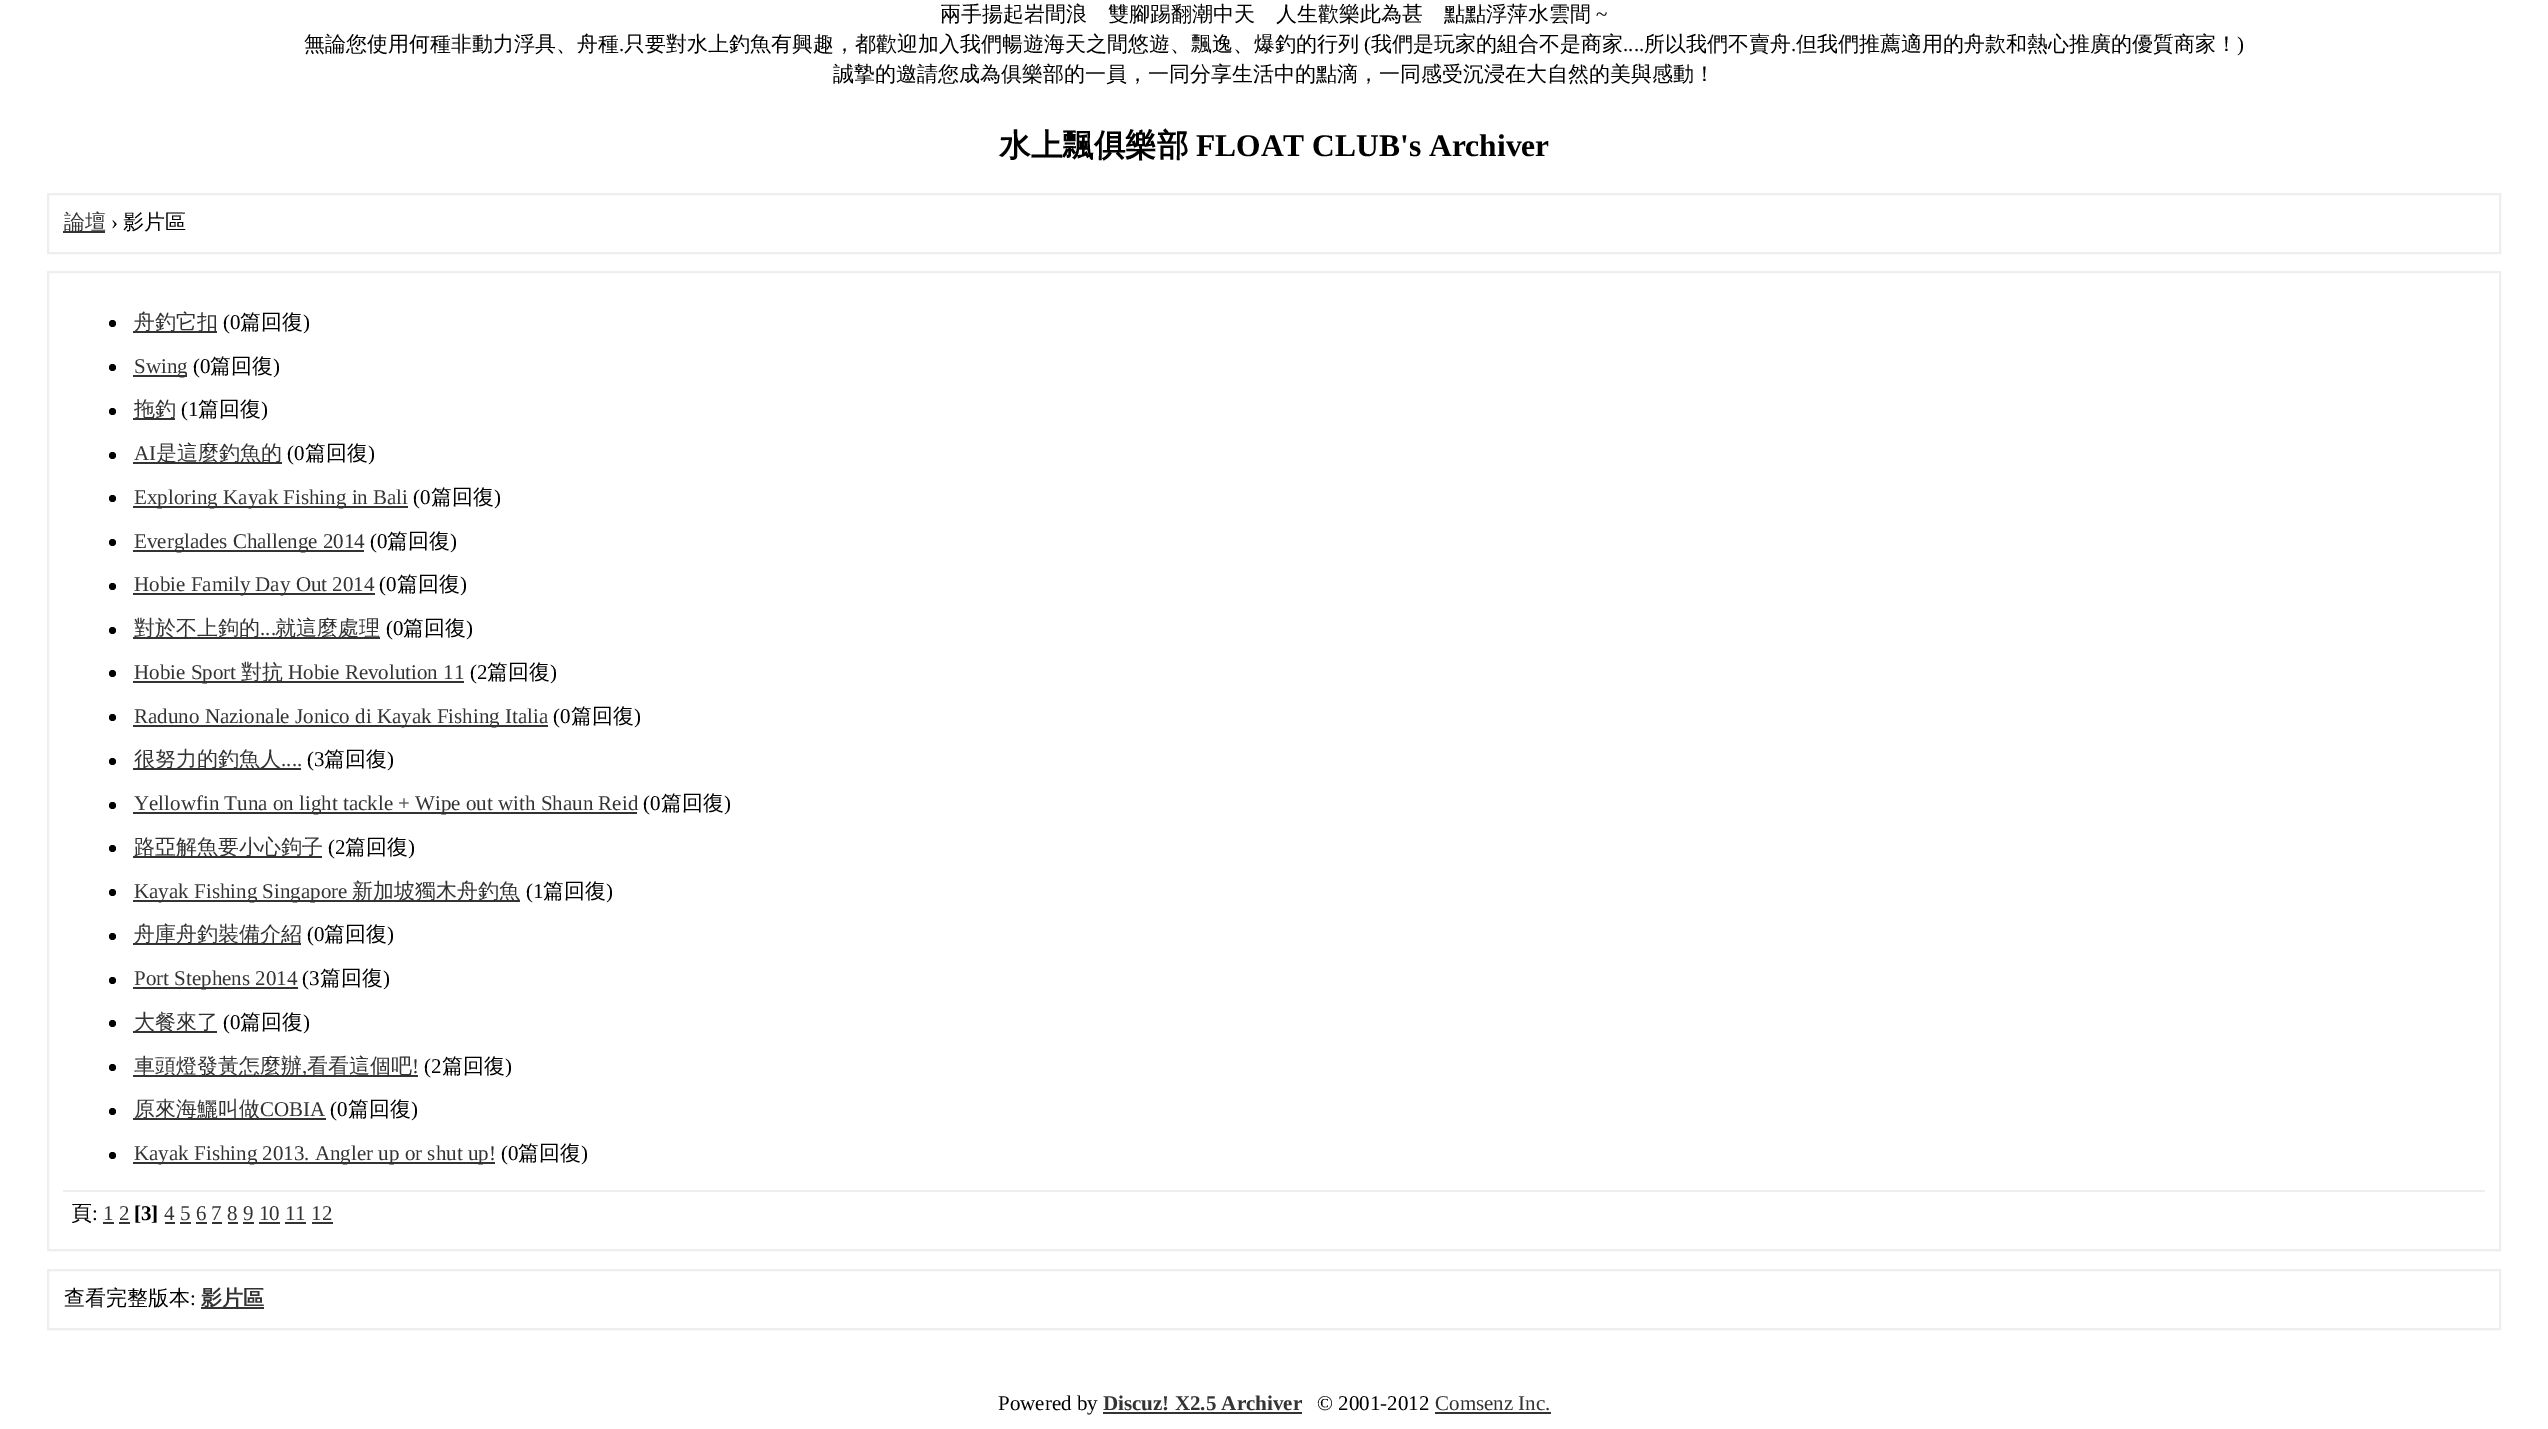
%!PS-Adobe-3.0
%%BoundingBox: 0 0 2548 1429
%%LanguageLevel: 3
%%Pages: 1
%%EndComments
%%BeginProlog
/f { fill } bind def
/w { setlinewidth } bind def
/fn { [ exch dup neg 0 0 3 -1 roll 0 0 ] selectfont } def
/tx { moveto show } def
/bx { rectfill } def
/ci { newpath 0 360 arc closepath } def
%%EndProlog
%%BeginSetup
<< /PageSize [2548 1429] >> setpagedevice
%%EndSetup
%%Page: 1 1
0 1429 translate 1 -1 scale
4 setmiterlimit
1 setgray
0 0 2548 1429 bx
/WenQuanYiZenHei-Medium 21 fn
0 setgray
(兩手揚起岩間浪　雙腳踢翻潮中天　人生歡樂此為甚　點點浮萍水雲間) 940 21 tx
/LiberationSerif-Regular 21 fn
(~) 1596 21 tx
/WenQuanYiZenHei-Medium 21 fn
(無論您使用何種非動力浮具、舟種) 304 51 tx
/LiberationSerif-Regular 21 fn
(.) 619 51 tx
/WenQuanYiZenHei-Medium 21 fn
(只要對水上釣魚有興趣，都歡迎加入我們暢遊海天之間悠遊、飄逸、爆釣的行列) 624 51 tx
/LiberationSerif-Regular 21 fn
(\() 1364 51 tx
/WenQuanYiZenHei-Medium 21 fn
(我們是玩家的組合不是商家) 1371 51 tx
/LiberationSerif-Regular 21 fn
(....) 1623 51 tx
/WenQuanYiZenHei-Medium 21 fn
(所以我們不賣舟) 1644 51 tx
/LiberationSerif-Regular 21 fn
(.) 1791 51 tx
/WenQuanYiZenHei-Medium 21 fn
(但我們推薦適用的舟款和熱心推廣的優質商家！) 1796 51 tx
/LiberationSerif-Regular 21 fn
(\)) 2237 51 tx
/WenQuanYiZenHei-Medium 21 fn
(誠摯的邀請您成為俱樂部的一員，一同分享生活中的點滴，一同感受沉浸在大自然的美與感動！) 833 81 tx
/WenQuanYiZenHei-Bold 31.5 fn
(水上飄俱樂部) 999 156 tx
/LiberationSerif-Bold 31.5 fn
(FLOAT CLUB's Archiver) 1196 156 tx
0.933 setgray
2 w
48 194 2452 59 rectstroke
0.2 setgray
63 231 42 2 bx
/WenQuanYiZenHei-Medium 21 fn
(論壇) 64 229 tx
/LiberationSerif-Regular 21 fn
0 setgray
(›) 111 229 tx
/WenQuanYiZenHei-Medium 21 fn
(影片區) 123 229 tx
0.933 setgray
48 272 2452 978 rectstroke
0 setgray
112.5 323.5 3.5 ci f
0.2 setgray
133 331 84 2 bx
(舟釣它扣) 134 329 tx
/LiberationSerif-Regular 21 fn
0 setgray
(\(0) 223 329 tx
/WenQuanYiZenHei-Medium 21 fn
(篇回復) 240 329 tx
/LiberationSerif-Regular 21 fn
(\)) 303 329 tx
112.5 367.5 3.5 ci f
0.2 setgray
133 375 54 2 bx
(Swing) 134 373 tx
0 setgray
(\(0) 193 373 tx
/WenQuanYiZenHei-Medium 21 fn
(篇回復) 210 373 tx
/LiberationSerif-Regular 21 fn
(\)) 273 373 tx
112.5 411.5 3.5 ci f
0.2 setgray
133 418 42 2 bx
/WenQuanYiZenHei-Medium 21 fn
(拖釣) 134 416 tx
/LiberationSerif-Regular 21 fn
0 setgray
(\(1) 181 416 tx
/WenQuanYiZenHei-Medium 21 fn
(篇回復) 198 416 tx
/LiberationSerif-Regular 21 fn
(\)) 261 416 tx
112.5 455.5 3.5 ci f
0.2 setgray
(AI) 134 460 tx
133 462 149 2 bx
/WenQuanYiZenHei-Medium 21 fn
(是這麼釣魚的) 156 460 tx
/LiberationSerif-Regular 21 fn
0 setgray
(\(0) 287 460 tx
/WenQuanYiZenHei-Medium 21 fn
(篇回復) 305 460 tx
/LiberationSerif-Regular 21 fn
(\)) 368 460 tx
112.5 498.5 3.5 ci f
0.2 setgray
133 506 275 2 bx
(Exploring Kayak Fishing in Bali) 134 504 tx
0 setgray
(\(0) 413 504 tx
/WenQuanYiZenHei-Medium 21 fn
(篇回復) 431 504 tx
/LiberationSerif-Regular 21 fn
(\)) 494 504 tx
112.5 542.5 3.5 ci f
0.2 setgray
133 550 231 2 bx
(Everglades Challenge 2014) 134 548 tx
0 setgray
(\(0) 370 548 tx
/WenQuanYiZenHei-Medium 21 fn
(篇回復) 387 548 tx
/LiberationSerif-Regular 21 fn
(\)) 450 548 tx
112.5 586.5 3.5 ci f
0.2 setgray
133 593 242 2 bx
(Hobie Family Day Out 2014) 134 591 tx
0 setgray
(\(0) 379 591 tx
/WenQuanYiZenHei-Medium 21 fn
(篇回復) 397 591 tx
/LiberationSerif-Regular 21 fn
(\)) 460 591 tx
112.5 630.5 3.5 ci f
0.2 setgray
133 637 247 2 bx
/WenQuanYiZenHei-Medium 21 fn
(對於不上鉤的) 134 635 tx
/LiberationSerif-Regular 21 fn
(...) 260 635 tx
/WenQuanYiZenHei-Medium 21 fn
(就這麼處理) 275 635 tx
/LiberationSerif-Regular 21 fn
0 setgray
(\(0) 386 635 tx
/WenQuanYiZenHei-Medium 21 fn
(篇回復) 403 635 tx
/LiberationSerif-Regular 21 fn
(\)) 466 635 tx
112.5 673.5 3.5 ci f
0.2 setgray
133 681 331 2 bx
(Hobie Sport) 134 679 tx
/WenQuanYiZenHei-Medium 21 fn
(對抗) 241 679 tx
/LiberationSerif-Regular 21 fn
(Hobie Revolution 11) 288 679 tx
0 setgray
(\(2) 470 679 tx
/WenQuanYiZenHei-Medium 21 fn
(篇回復) 487 679 tx
/LiberationSerif-Regular 21 fn
(\)) 550 679 tx
112.5 717.5 3.5 ci f
0.2 setgray
133 725 415 2 bx
(Raduno Nazionale Jonico di Kayak Fishing Italia) 134 723 tx
0 setgray
(\(0) 553 723 tx
/WenQuanYiZenHei-Medium 21 fn
(篇回復) 571 723 tx
/LiberationSerif-Regular 21 fn
(\)) 634 723 tx
112.5 761.5 3.5 ci f
0.2 setgray
133 768 168 2 bx
/WenQuanYiZenHei-Medium 21 fn
(很努力的釣魚人) 134 766 tx
/LiberationSerif-Regular 21 fn
(....) 281 766 tx
0 setgray
(\(3) 307 766 tx
/WenQuanYiZenHei-Medium 21 fn
(篇回復) 324 766 tx
/LiberationSerif-Regular 21 fn
(\)) 387 766 tx
112.5 805.5 3.5 ci f
0.2 setgray
133 812 504 2 bx
(Yellowfin Tuna on light tackle + Wipe out with Shaun Reid) 134 810 tx
0 setgray
(\(0) 643 810 tx
/WenQuanYiZenHei-Medium 21 fn
(篇回復) 661 810 tx
/LiberationSerif-Regular 21 fn
(\)) 724 810 tx
112.5 848.5 3.5 ci f
0.2 setgray
133 856 189 2 bx
/WenQuanYiZenHei-Medium 21 fn
(路亞解魚要小心鉤子) 134 854 tx
/LiberationSerif-Regular 21 fn
0 setgray
(\(2) 328 854 tx
/WenQuanYiZenHei-Medium 21 fn
(篇回復) 345 854 tx
/LiberationSerif-Regular 21 fn
(\)) 408 854 tx
112.5 892.5 3.5 ci f
0.2 setgray
133 900 387 2 bx
(Kayak Fishing Singapore) 134 898 tx
/WenQuanYiZenHei-Medium 21 fn
(新加坡獨木舟釣魚) 352 898 tx
/LiberationSerif-Regular 21 fn
0 setgray
(\(1) 526 898 tx
/WenQuanYiZenHei-Medium 21 fn
(篇回復) 543 898 tx
/LiberationSerif-Regular 21 fn
(\)) 606 898 tx
112.5 936.5 3.5 ci f
0.2 setgray
133 943 168 2 bx
/WenQuanYiZenHei-Medium 21 fn
(舟庫舟釣裝備介紹) 134 941 tx
/LiberationSerif-Regular 21 fn
0 setgray
(\(0) 307 941 tx
/WenQuanYiZenHei-Medium 21 fn
(篇回復) 324 941 tx
/LiberationSerif-Regular 21 fn
(\)) 387 941 tx
112.5 980.5 3.5 ci f
0.2 setgray
133 987 165 2 bx
(Port Stephens 2014) 134 985 tx
0 setgray
(\(3) 302 985 tx
/WenQuanYiZenHei-Medium 21 fn
(篇回復) 320 985 tx
/LiberationSerif-Regular 21 fn
(\)) 383 985 tx
112.5 1023.5 3.5 ci f
0.2 setgray
133 1031 84 2 bx
/WenQuanYiZenHei-Medium 21 fn
(大餐來了) 134 1029 tx
/LiberationSerif-Regular 21 fn
0 setgray
(\(0) 223 1029 tx
/WenQuanYiZenHei-Medium 21 fn
(篇回復) 240 1029 tx
/LiberationSerif-Regular 21 fn
(\)) 303 1029 tx
112.5 1067.5 3.5 ci f
0.2 setgray
133 1075 285 2 bx
/WenQuanYiZenHei-Medium 21 fn
(車頭燈發黃怎麼辦) 134 1073 tx
(看看這個吧) 307 1073 tx
/LiberationSerif-Regular 21 fn
(!) 412 1073 tx
0 setgray
(\(2) 424 1073 tx
/WenQuanYiZenHei-Medium 21 fn
(篇回復) 442 1073 tx
/LiberationSerif-Regular 21 fn
(\)) 505 1073 tx
0.2 setgray
(,) 302 1073 tx
0 setgray
112.5 1111.5 3.5 ci f
0.2 setgray
133 1118 193 2 bx
/WenQuanYiZenHei-Medium 21 fn
(原來海鱺叫做) 134 1116 tx
/LiberationSerif-Regular 21 fn
(COBIA) 260 1116 tx
0 setgray
(\(0) 330 1116 tx
/WenQuanYiZenHei-Medium 21 fn
(篇回復) 348 1116 tx
/LiberationSerif-Regular 21 fn
(\)) 411 1116 tx
112.5 1155.5 3.5 ci f
0.2 setgray
133 1162 362 2 bx
(Kayak Fishing 2013. Angler up or shut up!) 134 1160 tx
0 setgray
(\(0) 501 1160 tx
/WenQuanYiZenHei-Medium 21 fn
(篇回復) 518 1160 tx
/LiberationSerif-Regular 21 fn
(\)) 581 1160 tx
0.933 setgray
63 1190 2422 2 bx
/WenQuanYiZenHei-Medium 21 fn
0 setgray
(頁) 71 1220 tx
/LiberationSerif-Regular 21 fn
(:) 92 1220 tx
0.2 setgray
(1 2) 103 1220 tx
103 1222 11 2 bx
/LiberationSerif-Bold 21 fn
0 setgray
([3]) 134 1220 tx
/LiberationSerif-Regular 21 fn
0.2 setgray
(4 5 6 7 8 9 10 11 12) 164 1220 tx
165 1222 10 2 bx
119 1222 11 2 bx
180 1222 11 2 bx
196 1222 11 2 bx
212 1222 10 2 bx
228 1222 10 2 bx
243 1222 11 2 bx
259 1222 21 2 bx
285 1222 21 2 bx
312 1222 21 2 bx
0.933 setgray
48 1270 2452 59 rectstroke
/WenQuanYiZenHei-Medium 21 fn
0 setgray
(查看完整版本) 64 1305 tx
/LiberationSerif-Regular 21 fn
(:) 190 1305 tx
0.2 setgray
201 1307 63 2 bx
/WenQuanYiZenHei-Bold 21 fn
(影片區) 201 1305 tx
/LiberationSerif-Regular 21 fn
0 setgray
(Powered by) 998 1410 tx
/LiberationSerif-Bold 21 fn
0.2 setgray
(Discuz! X2.5 Archiver) 1103 1410 tx
1103 1412 199 2 bx
/LiberationSerif-Regular 21 fn
0 setgray
(© 2001-2012) 1317 1410 tx
0.2 setgray
(Comsenz Inc.) 1435 1410 tx
1435 1412 116 2 bx
showpage
%%EOF
